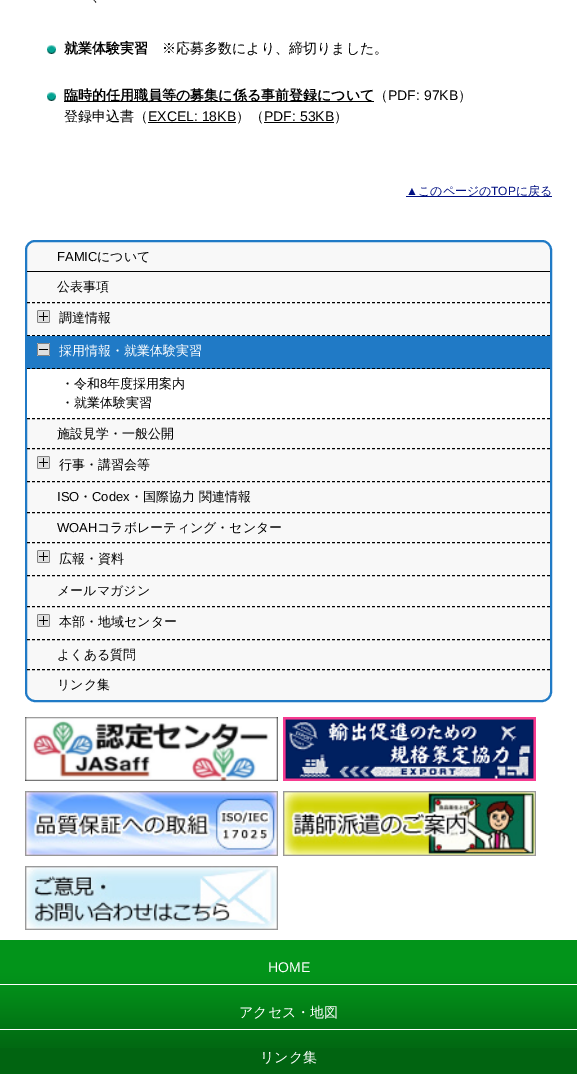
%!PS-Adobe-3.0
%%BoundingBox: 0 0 577 1074
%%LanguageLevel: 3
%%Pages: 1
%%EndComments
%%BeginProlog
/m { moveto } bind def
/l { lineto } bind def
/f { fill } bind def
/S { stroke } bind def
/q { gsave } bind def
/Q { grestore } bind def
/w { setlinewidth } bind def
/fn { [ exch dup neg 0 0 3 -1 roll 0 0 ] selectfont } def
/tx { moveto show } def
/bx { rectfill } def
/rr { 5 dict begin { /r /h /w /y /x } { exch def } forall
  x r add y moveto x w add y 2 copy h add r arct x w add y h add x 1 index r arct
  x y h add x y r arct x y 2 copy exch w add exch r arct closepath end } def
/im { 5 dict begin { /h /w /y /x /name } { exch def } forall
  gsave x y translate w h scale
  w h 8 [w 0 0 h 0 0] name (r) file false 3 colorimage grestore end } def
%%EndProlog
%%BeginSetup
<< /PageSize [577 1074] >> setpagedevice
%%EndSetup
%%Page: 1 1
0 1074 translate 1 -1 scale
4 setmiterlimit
1 setgray
0 0 577 1074 bx
/WenQuanYiZenHei-Medium 14 fn
0 setgray
(、) 92 1 tx
(image0.raw) 47 45 9 9 im
/WenQuanYiZenHei-Bold 14 fn
(就業体験実習) 64 53 tx
/WenQuanYiZenHei-Medium 14 fn
(※応募多数により、締切りました。) 162 53 tx
(image0.raw) 47 92 9 9 im
64 101 310 1 bx
/WenQuanYiZenHei-Bold 14 fn
(臨時的任用職員等の募集に係る事前登録について) 64 100 tx
/WenQuanYiZenHei-Medium 14 fn
(（) 374 100 tx
/LiberationSans-Regular 14 fn
(PDF: 97KB) 388 100 tx
/WenQuanYiZenHei-Medium 14 fn
(）) 458 100 tx
(登録申込書（) 64 121 tx
/LiberationSans-Regular 14 fn
(EXCEL: 18KB) 148 121 tx
148 122 88 1 bx
/WenQuanYiZenHei-Medium 14 fn
(）（) 236 121 tx
/LiberationSans-Regular 14 fn
(PDF: 53KB) 264 121 tx
264 122 70 1 bx
/WenQuanYiZenHei-Medium 14 fn
(）) 334 121 tx
/LiberationSans-Regular 12 fn
0.004 0.063 0.514 setrgbcolor
(▲) 406 195 tx
406 196 146 1 bx
/WenQuanYiZenHei-Medium 12 fn
(このページの) 418 195 tx
/LiberationSans-Regular 12 fn
(TOP) 491 195 tx
/WenQuanYiZenHei-Medium 12 fn
(に戻る) 516 195 tx
0.973 setgray
26 241 525 460 9 rr q f Q
0.125 0.478 0.776 setrgbcolor
2 w
S
0 setgray
27 271 523 1 bx
/LiberationSans-Regular 13 fn
(FAMIC) 57 261 tx
/WenQuanYiZenHei-Medium 13 fn
(について) 97 261 tx
1 w
[3 2] 0 setdash
27 302.5 m 550 302.5 l S
(公表事項) 57 291 tx
27 335.5 m 550 335.5 l S
(image1.raw) 37 310 13 13 im
(調達情報) 59 322 tx
0.125 0.478 0.776 setrgbcolor
27 336 523 33 bx
0 setgray
27 368.5 m 550 368.5 l S
(image2.raw) 37 343 13 13 im
1 setgray
(採用情報・就業体験実習) 59 355 tx
27 369 523 50 bx
0 setgray
27 418.5 m 550 418.5 l S
(・令和) 61 388 tx
/LiberationSans-Regular 13 fn
(8) 100 388 tx
/WenQuanYiZenHei-Medium 13 fn
(年度採用案内) 107 388 tx
(・就業体験実習) 61 407 tx
27 448.5 m 550 448.5 l S
(施設見学・一般公開) 57 438 tx
27 481.5 m 550 481.5 l S
(image1.raw) 37 456 13 13 im
(行事・講習会等) 59 469 tx
27 512.5 m 550 512.5 l S
/LiberationSans-Regular 13 fn
(ISO) 57 501 tx
/WenQuanYiZenHei-Medium 13 fn
(・) 79 501 tx
/LiberationSans-Regular 13 fn
(Codex) 92 501 tx
/WenQuanYiZenHei-Medium 13 fn
(・国際協力 関連情報) 130 501 tx
27 542.5 m 550 542.5 l S
/LiberationSans-Regular 13 fn
(WOAH) 57 532 tx
/WenQuanYiZenHei-Medium 13 fn
(コラボレーティング・センター) 97 532 tx
27 575.5 m 550 575.5 l S
(image1.raw) 37 550 13 13 im
(広報・資料) 59 563 tx
27 606.5 m 550 606.5 l S
(メールマガジン) 57 595 tx
27 639.5 m 550 639.5 l S
(image1.raw) 37 614 13 13 im
(本部・地域センター) 59 626 tx
27 669.5 m 550 669.5 l S
(よくある質問) 57 659 tx
(リンク集) 57 689 tx
(image3.raw) 25 717 253 64 im
(image4.raw) 283 717 253 64 im
(image5.raw) 25 791 253 65 im
(image6.raw) 283 791 253 65 im
(image7.raw) 25 866 253 64 im
0.004 0.392 0.067 setrgbcolor
0 1048 577 26 bx
(image8.raw) 0 940 577 108 im
1 setgray
0 984 577 1 bx
/LiberationSans-Regular 14 fn
(HOME) 268 972 tx
0 1029 577 1 bx
/WenQuanYiZenHei-Medium 14 fn
(アクセス・地図) 239 1017 tx
(リンク集) 260 1062 tx
showpage
%%EOF
